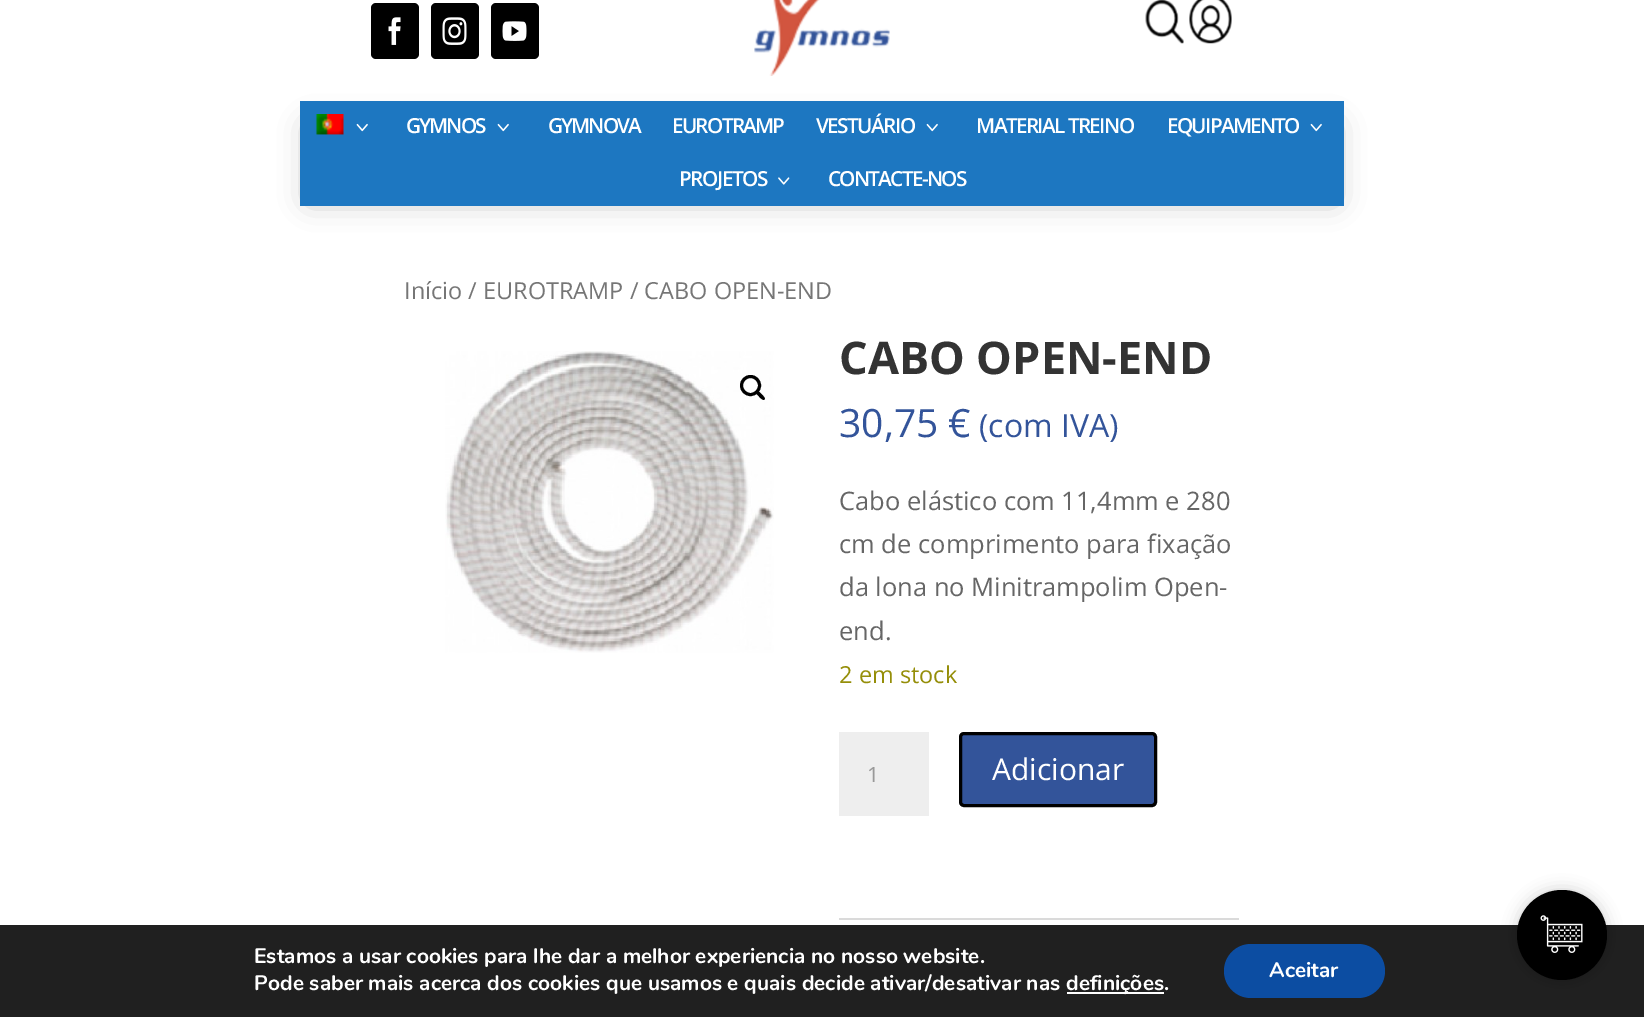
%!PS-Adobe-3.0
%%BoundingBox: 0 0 1644 1017
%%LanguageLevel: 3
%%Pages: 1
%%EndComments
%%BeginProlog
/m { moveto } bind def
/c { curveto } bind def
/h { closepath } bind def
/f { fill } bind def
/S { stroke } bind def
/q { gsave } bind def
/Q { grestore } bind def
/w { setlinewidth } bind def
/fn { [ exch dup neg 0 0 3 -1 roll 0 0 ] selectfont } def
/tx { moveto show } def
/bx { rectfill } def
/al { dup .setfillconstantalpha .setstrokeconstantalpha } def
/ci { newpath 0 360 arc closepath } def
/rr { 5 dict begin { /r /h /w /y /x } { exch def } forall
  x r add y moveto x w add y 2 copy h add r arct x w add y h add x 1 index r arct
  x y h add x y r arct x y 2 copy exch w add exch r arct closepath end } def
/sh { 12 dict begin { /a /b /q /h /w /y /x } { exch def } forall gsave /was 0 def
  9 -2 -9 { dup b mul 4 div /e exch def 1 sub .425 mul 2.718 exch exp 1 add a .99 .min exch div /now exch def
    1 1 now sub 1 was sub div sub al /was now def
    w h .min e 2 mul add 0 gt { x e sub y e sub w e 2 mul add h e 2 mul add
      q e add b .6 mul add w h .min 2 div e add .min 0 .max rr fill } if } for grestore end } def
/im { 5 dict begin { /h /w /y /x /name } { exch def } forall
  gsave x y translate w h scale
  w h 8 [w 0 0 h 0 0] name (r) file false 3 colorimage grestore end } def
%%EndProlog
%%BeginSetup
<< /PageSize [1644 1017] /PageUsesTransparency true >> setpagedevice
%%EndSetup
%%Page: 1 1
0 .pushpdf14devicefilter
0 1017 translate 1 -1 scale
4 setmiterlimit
1 setgray
0 0 1644 1017 bx
0 setgray
371 3 48 56 5 rr f
(image0.raw) 388 17 13 28 im
431 3 48 56 5 rr f
(image1.raw) 442 17 25 28 im
491 3 48 56 5 rr f
(image2.raw) 502 21 25 20 im
(image3.raw) 754 0 136 76 im
(image4.raw) 1145 0 39 44 im
(image5.raw) 1189 0 43 44 im
309 126 1026 74 0 14.5 0.3 sh
0.114 0.467 0.757 setrgbcolor
300 101 1044 105 bx
(image6.raw) 315 114 29 21 im
(image7.raw) 356 123 12 9 im
/OpenSans-SemiBold 20.75 fn
1 setgray
406 133 m -2 0 (GYMNOS) ashow
(image7.raw) 497 123 12 9 im
548 133 m -2 0 (GYMNOVA) ashow
672 133 m -1.75 0 (EUROTRAMP) ashow
816 133 m -1.6 0 (VESTUÁRIO) ashow
(image7.raw) 926 123 12 9 im
976 133 m -1.6 0 (MATERIAL TREINO) ashow
1167 133 m -1.75 0 (EQUIPAMENTO) ashow
(image7.raw) 1310 123 12 9 im
679 186 m -1.5 0 (PROJETOS) ashow
(image8.raw) 778 177 12 8 im
828 186 m -1.75 0 (CONTACTE-NOS) ashow
/OpenSans-Regular 23.5 fn
0.463 setgray
(Início / EUROTRAMP / CABO OPEN-END) 404 299 tx
(image9.raw) 445 351 329 302 im
0 setgray
3 w
750.5 385.5 9 ci S
756 391 m 757.5 389.5 760.5 393.5 761.5 394 c 762 395 766 398 764.5 399.5 c 763 401 760 397.5 759 396.5 c 758.5 395.5 754.5 393 756 391 c h f
/OpenSans-Bold 45 fn
0.2 setgray
(CABO OPEN-END) 839 374 tx
/OpenSans-Regular 39 fn
0.2 0.329 0.604 setrgbcolor
(30,75 €) 839 437 tx
/OpenSans-Regular 32 fn
(\(com IVA\)) 979 437 tx
/OpenSans-Regular 25.5 fn
0.4 setgray
(Cabo elástico com 11,4mm e 280) 839 510 tx
(cm de comprimento para fixação) 839 553 tx
(da lona no Minitrampolim Open-) 839 596 tx
(end.) 839 640 tx
/OpenSans-Regular 23.5 fn
0.584 0.557 0.035 setrgbcolor
(2 em stock) 839 683 tx
0.933 setgray
839 732 90 84 bx
/OpenSans-Regular 21 fn
0.6 setgray
(1) 867 782 tx
0.2 0.329 0.604 setrgbcolor
960.5 733.5 195 72 3.5 rr q f Q
0 setgray
S
/OpenSans-Regular 30 fn
1 setgray
(Adicionar) 992 780 tx
0.855 setgray
839 918 400 2 bx
0.125 setgray
0 925 1644 92 bx
/Nunito-Bold 21 fn
1 setgray
(Estamos a usar cookies para lhe dar a melhor experiencia no nosso website.) 254 963 tx
(Pode saber mais acerca dos cookies que usamos e quais decide ativar/desativar nas) 254 990 tx
1067 992 97 2 bx
(definições.) 1066 990 tx
0.047 0.302 0.635 setrgbcolor
1224 944 161 54 27 rr f
1 setgray
(Aceitar) 1269 977 tx
0 setgray
1517 890 90 90 45 7.5 0.19 sh
1562 935 45 ci f
(image10.raw) 1540 915 43 38 im
.poppdf14devicefilter showpage
%%EOF
